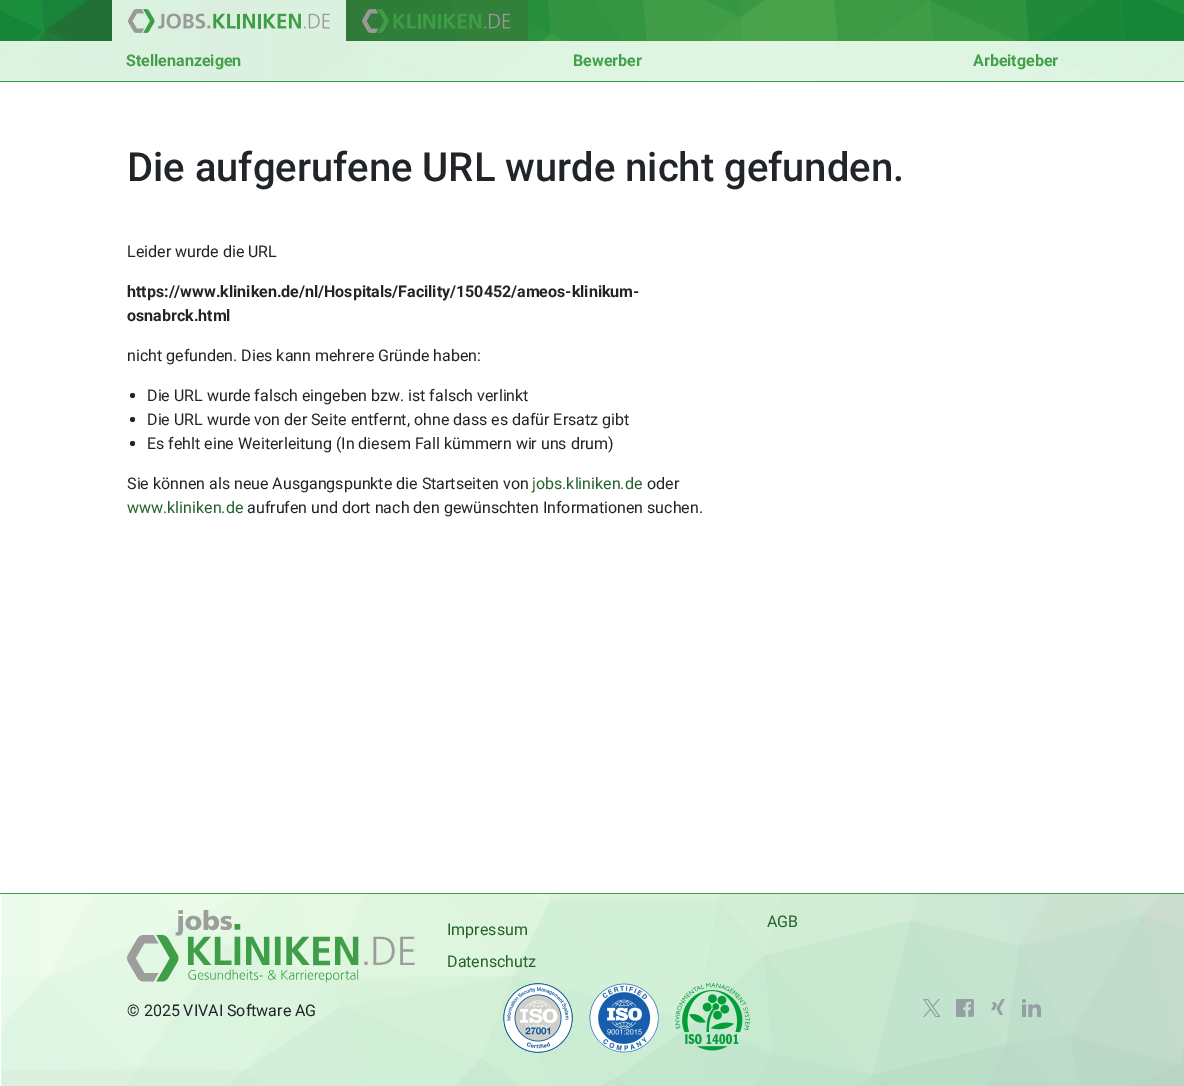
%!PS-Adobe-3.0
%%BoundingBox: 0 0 1184 1086
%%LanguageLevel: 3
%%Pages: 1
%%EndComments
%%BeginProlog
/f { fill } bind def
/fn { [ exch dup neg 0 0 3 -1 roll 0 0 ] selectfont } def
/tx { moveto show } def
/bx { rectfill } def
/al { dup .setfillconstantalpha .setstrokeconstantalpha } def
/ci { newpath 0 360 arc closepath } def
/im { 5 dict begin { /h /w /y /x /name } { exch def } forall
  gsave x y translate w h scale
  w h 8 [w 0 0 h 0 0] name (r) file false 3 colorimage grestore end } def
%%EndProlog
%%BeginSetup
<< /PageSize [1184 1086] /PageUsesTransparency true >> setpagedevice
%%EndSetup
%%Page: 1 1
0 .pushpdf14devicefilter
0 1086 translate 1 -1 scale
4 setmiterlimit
1 setgray
0 0 1184 1086 bx
(image0.raw) 0 0 1184 81 im
0.247 0.624 0.282 setrgbcolor
0 81 1184 1 bx
0.9 al
0.941 1 0.953 setrgbcolor
112 0 234 41 bx
1 al
(image1.raw) 128 9 202 24 im
0.8 al
0.208 0.486 0.227 setrgbcolor
346 0 182 41 bx
1 al
(image2.raw) 362 9 149 24 im
0.9 al
0.941 1 0.953 setrgbcolor
0 41 1184 40 bx
/Roboto-Bold 16 fn
1 al
0.255 0.627 0.282 setrgbcolor
(Stellenanzeigen) 126 66 tx
(Bewerber) 573 66 tx
(Arbeitgeber) 973 66 tx
/Roboto-Medium 40 fn
0.129 0.145 0.161 setrgbcolor
(Die aufgerufene URL wurde nicht gefunden.) 127 181 tx
/Roboto-Regular 16 fn
(Leider wurde die URL) 127 257 tx
/Roboto-Bold 16 fn
(https://www.kliniken.de/nl/Hospitals/Facility/150452/ameos-klinikum-) 127 297 tx
(osnabrck.html) 127 321 tx
/Roboto-Regular 16 fn
(nicht gefunden. Dies kann mehrere Gründe haben:) 127 361 tx
132.5 395.5 2.5 ci f
(Die URL wurde falsch eingeben bzw. ist falsch verlinkt) 147 401 tx
132.5 419.5 2.5 ci f
(Die URL wurde von der Seite entfernt, ohne dass es dafür Ersatz gibt) 147 425 tx
132.5 443.5 2.5 ci f
(Es fehlt eine Weiterleitung \(In diesem Fall kümmern wir uns drum\)) 147 449 tx
(Sie können als neue Ausgangspunkte die Startseiten von) 127 489 tx
0.141 0.388 0.169 setrgbcolor
(jobs.kliniken.de) 532 489 tx
0.129 0.145 0.161 setrgbcolor
(oder) 647 489 tx
0.141 0.388 0.169 setrgbcolor
(www.kliniken.de) 127 513 tx
0.129 0.145 0.161 setrgbcolor
(aufrufen und dort nach den gewünschten Informationen suchen.) 247 513 tx
(image3.raw) 1 894 1183 192 im
0.247 0.624 0.282 setrgbcolor
0 893 1184 1 bx
(image4.raw) 127 910 288 73 im
0.141 0.388 0.169 setrgbcolor
(AGB) 767 927 tx
(Impressum) 447 935 tx
(Datenschutz) 447 967 tx
0.129 0.145 0.161 setrgbcolor
(© 2025 VIVAI Software AG) 127 1016 tx
(image5.raw) 503 983 247 70 im
(image6.raw) 923 999 17 18 im
(image7.raw) 956 999 18 18 im
(image8.raw) 991 999 14 16 im
(image9.raw) 1022 999 19 18 im
.poppdf14devicefilter showpage
%%EOF
